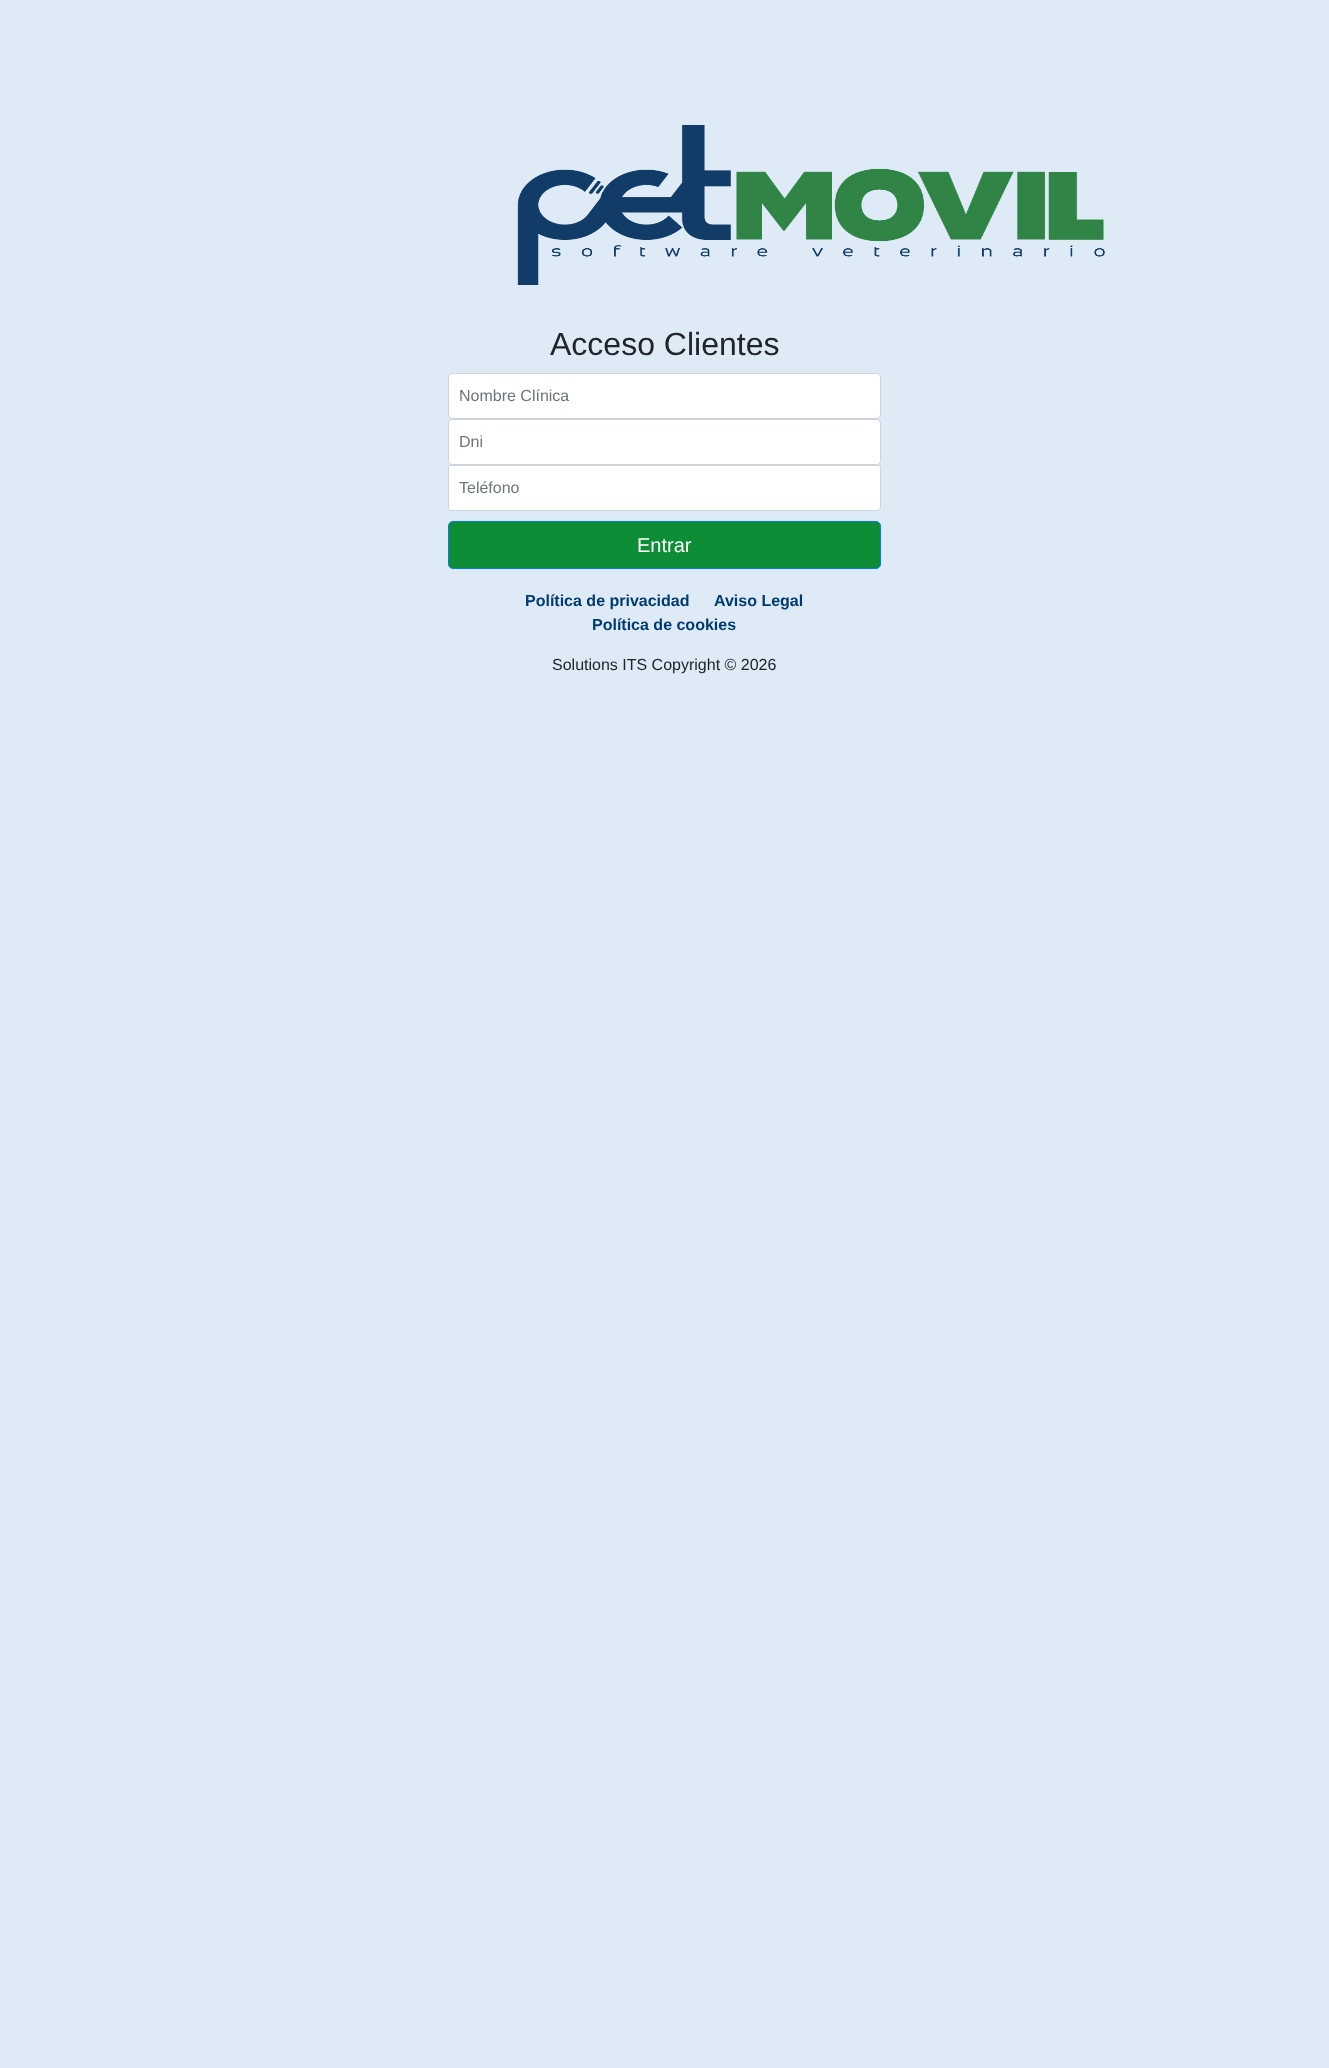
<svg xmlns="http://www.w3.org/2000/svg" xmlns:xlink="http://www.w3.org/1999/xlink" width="1329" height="2068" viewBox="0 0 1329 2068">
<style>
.cls-1{font:32px Liberation Sans;fill:#212529}
.cls-2{font:16px Liberation Sans;fill:#6c757d}
.cls-3{font:20px Liberation Sans;fill:#ffffff}
.cls-4{font:bold 16px Liberation Sans;fill:#003a70}
.cls-5{font:16px Liberation Sans;fill:#212529}
</style>
<rect width="100%" height="100%" fill="#deebf6"/>
<image xlink:href="image0.png" x="517" y="125" width="588" height="160"/>
<rect fill="#ffffff" stroke="#ced4da" x="448.5" y="373.5" width="432" height="45" rx="3.5"/>
<rect fill="#ffffff" stroke="#ced4da" x="448.5" y="419.5" width="432" height="45" rx="3.5"/>
<path fill="#ffffff" stroke="#ced4da" d="M448.5 465.5H880.5V507C880.5 509 879 510.5 877 510.5H452C450 510.5 448.5 509 448.5 507Z"/>
<rect fill="#0d8e36" stroke="#007bff" x="448.5" y="521.5" width="432" height="47" rx="4.5"/>
<text class="cls-1" x="550" y="355">Acceso Clientes</text>
<text class="cls-2" x="459" y="401">Nombre Clínica</text>
<text class="cls-2" x="459" y="447">Dni</text>
<text class="cls-2" x="459" y="493">Teléfono</text>
<text class="cls-3" x="637" y="552">Entrar</text>
<text class="cls-4" x="525" y="606">Política de privacidad</text>
<text class="cls-4" x="714" y="606">Aviso Legal</text>
<text class="cls-4" x="592" y="630">Política de cookies</text>
<text class="cls-5" x="552" y="670">Solutions ITS Copyright © 2026</text>
</svg>
